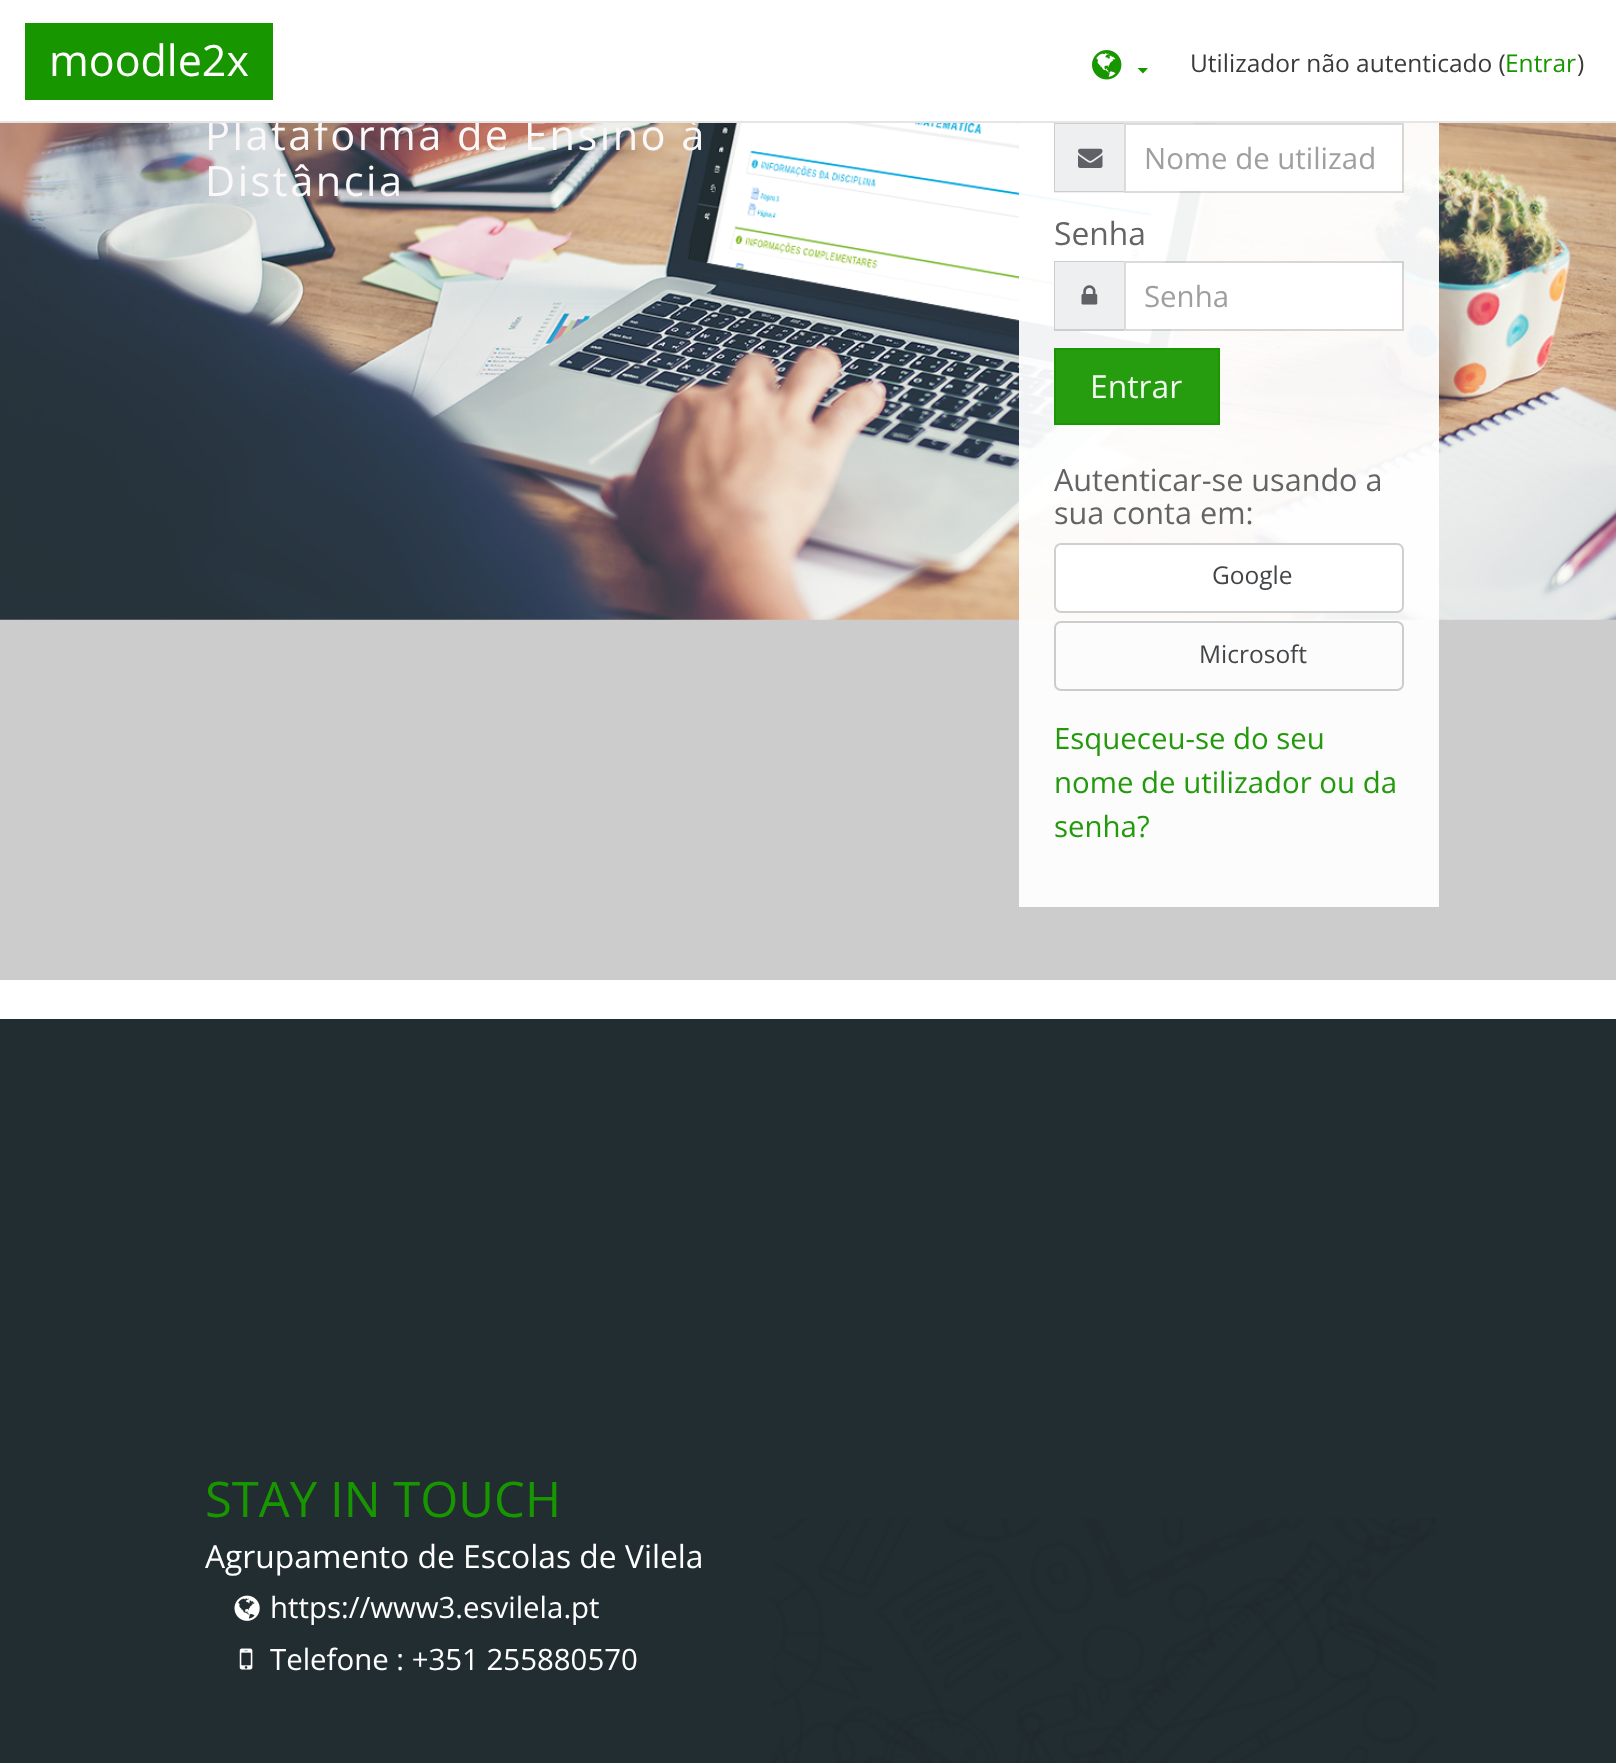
<svg xmlns="http://www.w3.org/2000/svg" xmlns:xlink="http://www.w3.org/1999/xlink" width="1616" height="1763" viewBox="0 0 1616 1763">
<style>
.cls-1{font:41.6px Open Sans;letter-spacing:2.45px;fill:#faf8f8}
.cls-2{font:24.5px Open Sans;fill:#3a3a3a}
.cls-3{font:24.5px Open Sans;fill:#189600}
.cls-4{font:43px Open Sans;fill:#ffffff}
.cls-5{font:29.4px Open Sans;fill:#9f9f9f}
.cls-6{font:31.8px Open Sans;fill:#646464}
.cls-7{font:31.8px Open Sans;fill:#f2f9f1}
.cls-8{font:30.6px Open Sans;fill:#646464}
.cls-9{font:24.5px Open Sans;fill:#434648}
.cls-10{font:29.4px Open Sans;fill:#23990c}
.cls-11{font:49px Open Sans;fill:#189600}
.cls-12{font:31.8px Open Sans;fill:#ffffff}
.cls-13{font:29.4px Open Sans;fill:#ffffff}
</style>
<rect width="100%" height="100%" fill="#222d32"/>
<rect fill="#ffffff" x="0" y="980" width="1616" height="39"/>
<rect fill="#cccccc" x="0" y="619" width="1616" height="361"/>
<image xlink:href="image1.png" x="0" y="123" width="1616" height="497"/>
<rect fill="#ffffff" fill-opacity="0.94" x="1019" y="123" width="420" height="784"/>
<rect fill="#eceeef" fill-opacity="0.94" x="1054" y="123" width="70" height="70"/>
<path fill="#0f0f0f" fill-opacity="0.15" d="M1054 122H1124V124H1055Z"/>
<path fill="#cccdce" d="M1124 192H1054L1055 191H1124Z"/>
<path fill="#000000" fill-opacity="0.14" d="M1054 192V122L1055 124V191Z"/>
<image xlink:href="image2.png" x="1078" y="148" width="25" height="20"/>
<rect fill="#ffffff" fill-opacity="0.94" x="1125" y="124" width="277" height="67"/>
<rect fill="none" stroke="#000000" stroke-opacity="0.14" stroke-width="2" x="1125" y="124" width="278" height="68"/>
<rect fill="#eceeef" fill-opacity="0.94" x="1054" y="261" width="70" height="70"/>
<path fill="#cccdce" d="M1054 261H1124V262H1055Z"/>
<path fill="#cccdce" d="M1124 331H1054L1055 329H1124Z"/>
<path fill="#000000" fill-opacity="0.14" d="M1054 331V261L1055 262V329Z"/>
<image xlink:href="image3.png" x="1081" y="285" width="17" height="20"/>
<rect fill="#ffffff" fill-opacity="0.94" x="1125" y="263" width="277" height="66"/>
<rect fill="none" stroke="#000000" stroke-opacity="0.14" stroke-width="2" x="1125" y="262" width="278" height="68"/>
<rect fill="#189600" fill-opacity="0.94" stroke="#199601" stroke-width="2" x="1055" y="349" width="164" height="75"/>
<rect fill="#ffffff" fill-opacity="0.94" x="1054" y="543" width="350" height="70" rx="7"/>
<rect fill="none" stroke="#cccccc" stroke-opacity="0.94" stroke-width="2" x="1055" y="544" width="348" height="68" rx="6"/>
<rect fill="none" stroke="#cccccc" stroke-width="2" x="1055" y="622" width="348" height="68" rx="6"/>
<image xlink:href="image4.png" x="772" y="1518" width="664" height="245"/>
<image xlink:href="image5.png" x="234" y="1595" width="26" height="26"/>
<image xlink:href="image6.png" x="239" y="1648" width="14" height="22"/>
<text class="cls-1" x="205" y="150">Plataforma de Ensino à</text>
<rect fill="#ffffff" x="0" y="0" width="1616" height="121"/>
<path fill="#189600" d="M1137.5 68H1148L1143 73.5Z"/>
<image xlink:href="image0.png" x="1092" y="50" width="30" height="30"/>
<text class="cls-2" x="1577" y="72">)</text>
<text class="cls-3" x="1505" y="72">Entrar</text>
<text class="cls-2" x="1190" y="72">Utilizador não autenticado (</text>
<rect fill="#189600" x="25" y="23" width="248" height="77"/>
<text class="cls-4" x="49" y="76">moodle2x</text>
<rect fill="#e5e5e5" x="0" y="121" width="1616" height="2"/>
<text class="cls-1" x="205" y="196">Distância</text>
<text class="cls-5" x="1144" y="169">Nome de utilizad</text>
<text class="cls-6" x="1054" y="245">Senha</text>
<text class="cls-5" x="1144" y="307">Senha</text>
<text class="cls-7" x="1090" y="398">Entrar</text>
<text class="cls-8"><tspan x="1054" y="491">Autenticar-se usando a</tspan><tspan x="1054" y="524">sua conta em:</tspan></text>
<text class="cls-9" x="1212" y="584">Google</text>
<text class="cls-9" x="1199" y="663">Microsoft</text>
<text class="cls-10"><tspan x="1054" y="749">Esqueceu-se do seu</tspan><tspan x="1054" y="793">nome de utilizador ou da</tspan><tspan x="1054" y="837">senha?</tspan></text>
<text class="cls-11" x="205" y="1517">STAY IN TOUCH</text>
<text class="cls-12" x="205" y="1568">Agrupamento de Escolas de Vilela</text>
<text class="cls-13"><tspan x="270" y="1618">https://www3.esvilela.pt</tspan><tspan x="270" y="1670">Telefone : +351 255880570</tspan></text>
</svg>
